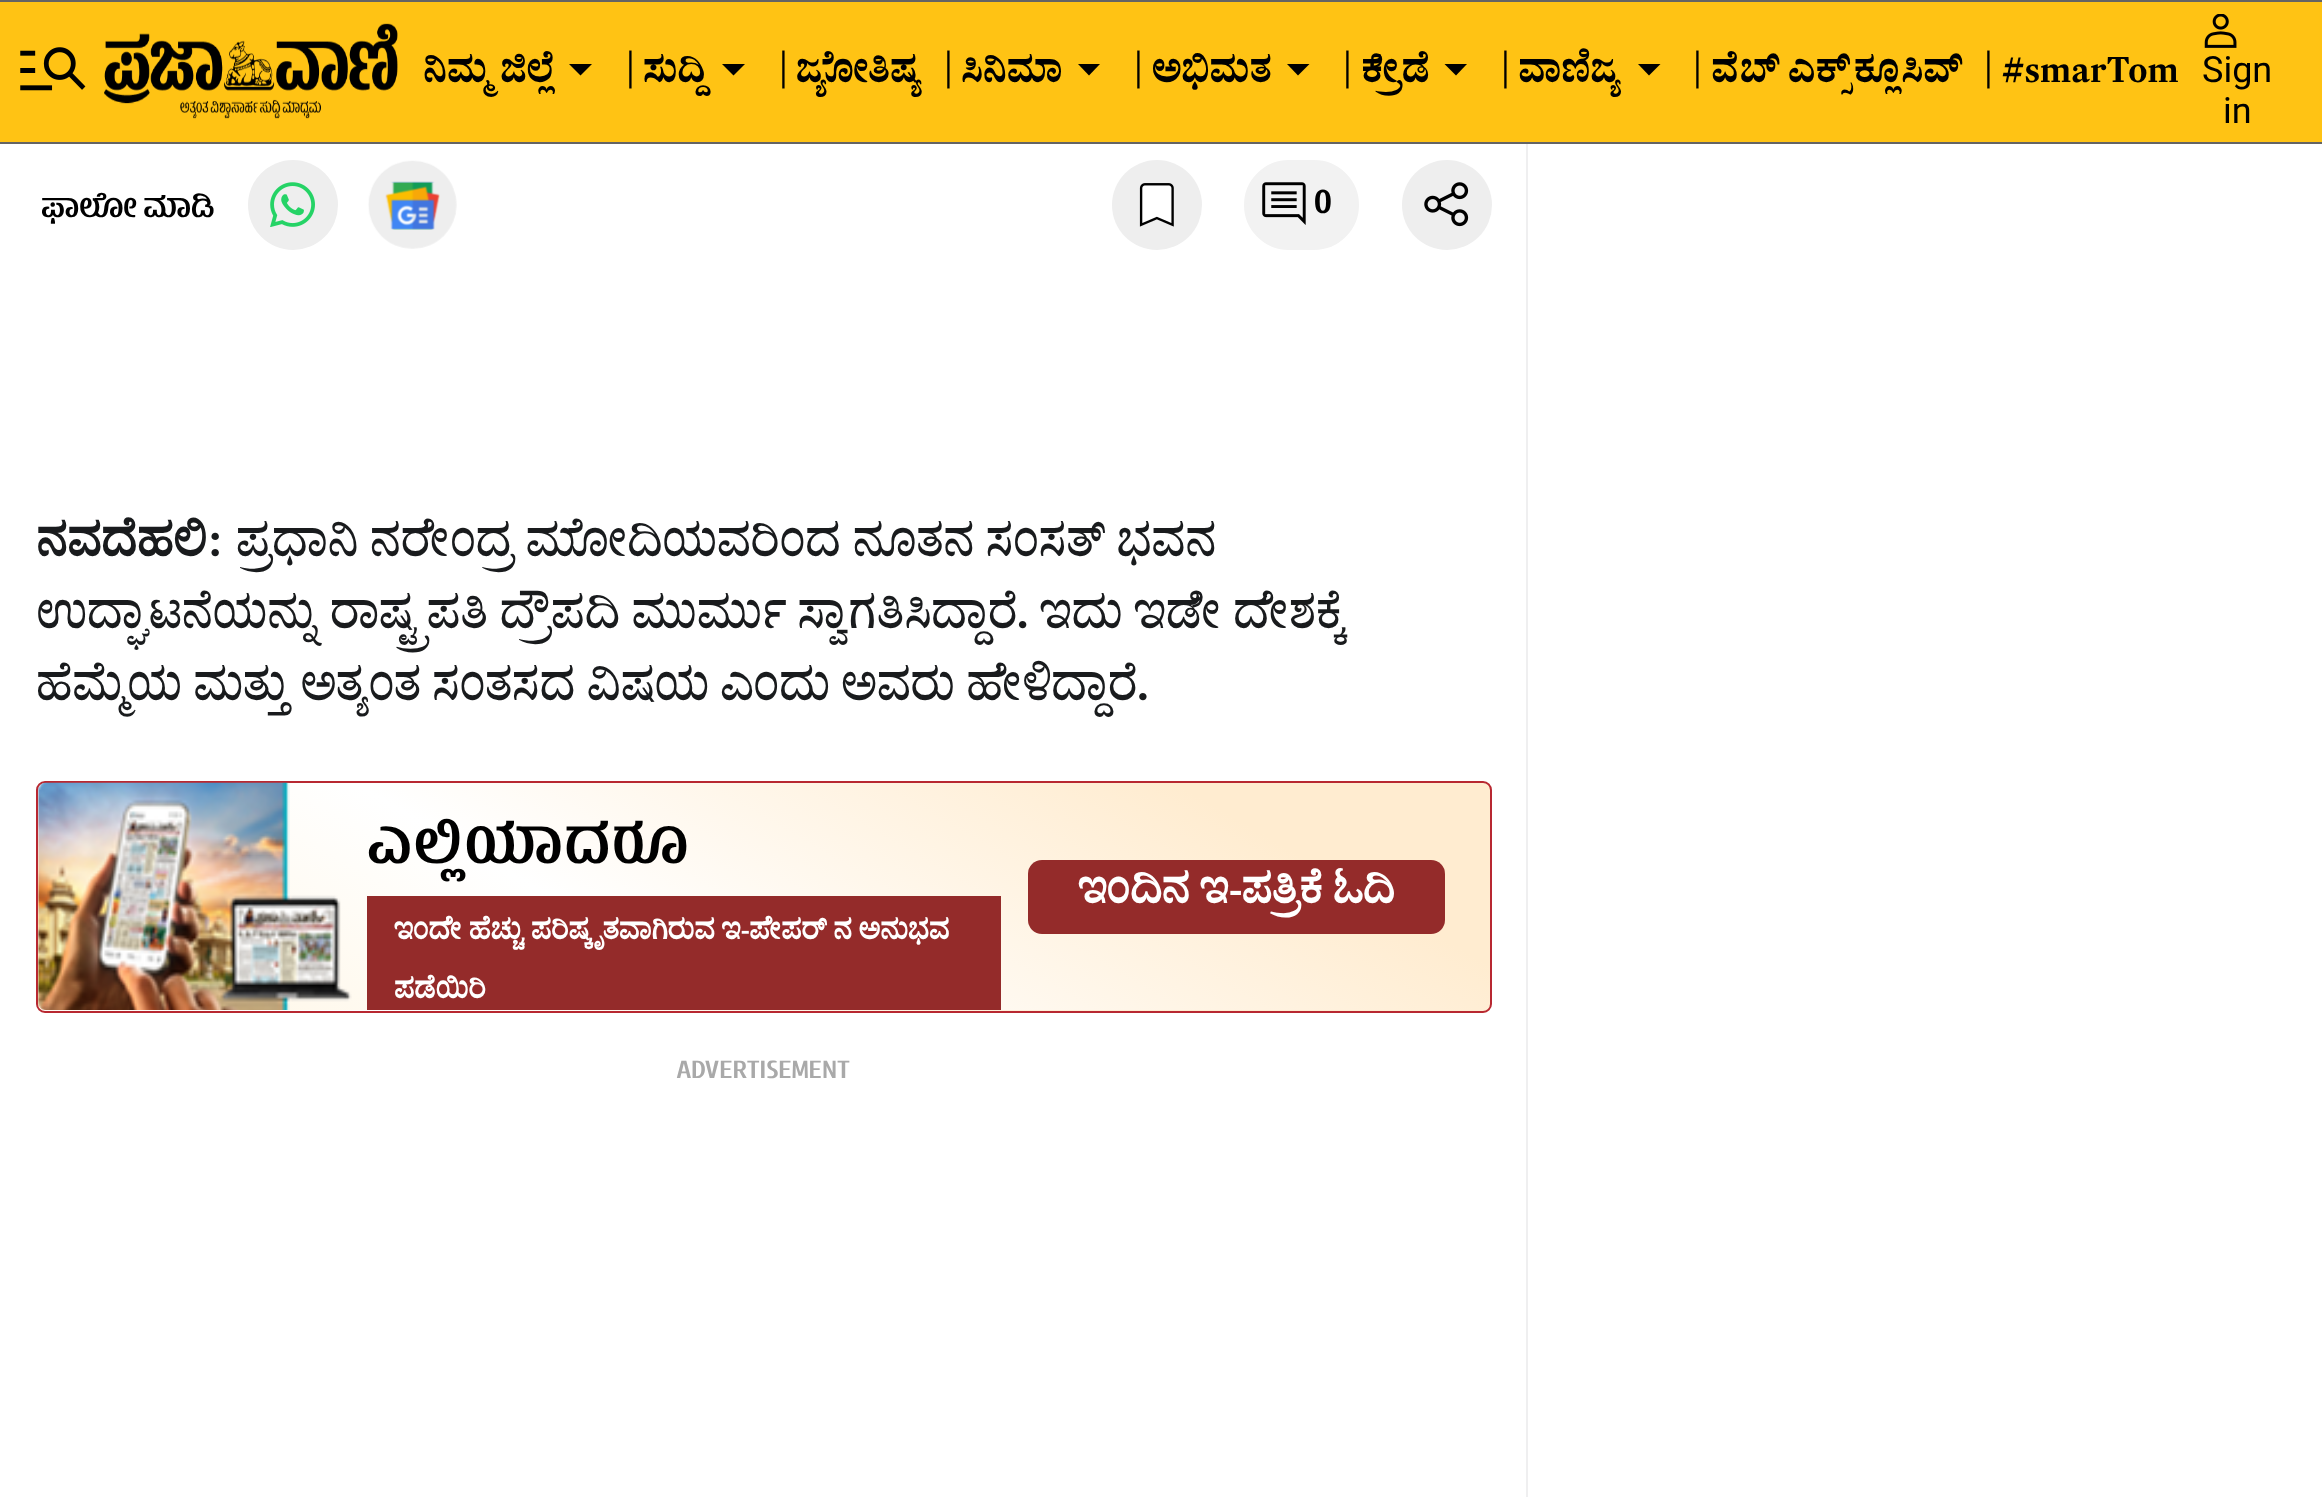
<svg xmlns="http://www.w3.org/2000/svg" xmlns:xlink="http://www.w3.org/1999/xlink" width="2322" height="1497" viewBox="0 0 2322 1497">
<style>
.cls-1{font:600 36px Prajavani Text;fill:#000000}
.cls-2{font:36px Roboto;fill:#000000}
.cls-3{font:600 31.5px 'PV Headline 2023';fill:#000000}
.cls-4{font:600 36px 'PV Headline 2023';fill:#000000}
.cls-5{font:bold 45px Prajavani Text;fill:#191b1d}
.cls-6{font:45px Prajavani Text;fill:#191b1d}
.cls-7{font:600 60.75px 'PV Headline 2023';letter-spacing:2.5px;fill:#000000}
.cls-8{font:bold 27px Prajavani Text;fill:#ffffff}
.cls-9{font:bold 40.5px Prajavani Text;fill:#ffffff}
.cls-10{font:600 27px 'PV Headline 2023';fill:#a9a9a9}
</style>
<defs>
<clipPath id="clip1"><rect x="36" y="781" width="1456" height="232" rx="9"/></clipPath>
<linearGradient id="g1" gradientUnits="userSpaceOnUse" x1="388" y1="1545" x2="996" y2="497"><stop offset="0" stop-color="#ffedca"/><stop offset="0.53" stop-color="#ffffff"/><stop offset="0.87" stop-color="#ffecd0"/></linearGradient>
<linearGradient id="g2" gradientUnits="userSpaceOnUse" x1="388" y1="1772" x2="996" y2="724"><stop offset="0" stop-color="#ffedca"/><stop offset="0.53" stop-color="#ffffff"/><stop offset="0.87" stop-color="#ffecd0"/></linearGradient>
</defs>
<rect width="100%" height="100%" fill="#ffffff"/>
<rect fill="#ffc314" x="0" y="2" width="2322" height="140"/>
<rect fill="#646464" x="0" y="0" width="2322" height="2"/>
<rect fill="#646464" x="0" y="142" width="2322" height="2"/>
<image xlink:href="image0.png" x="20" y="47" width="66" height="44"/>
<image xlink:href="image1.png" x="104" y="23" width="294" height="96"/>
<path fill="#000000" d="M580.5 75.5L569 64H592Z"/>
<path fill="#000000" d="M733.5 75.5L722 64H745Z"/>
<path fill="#000000" d="M1089 75.5L1078 64H1100Z"/>
<path fill="#000000" d="M1298 75.5L1287 64H1309.5Z"/>
<path fill="#000000" d="M1456 75.5L1444.5 64H1467Z"/>
<path fill="#000000" d="M1649 75.5L1638 64H1660.5Z"/>
<image xlink:href="image2.png" x="2204" y="14" width="33" height="34"/>
<circle fill="#eeeeee" cx="293" cy="205" r="45"/>
<image xlink:href="image3.png" x="270" y="182" width="45" height="45"/>
<image xlink:href="image4.png" x="368" y="160" width="89" height="89"/>
<circle fill="#eeeeee" cx="1157" cy="205" r="45"/>
<image xlink:href="image5.png" x="1139" y="183" width="35" height="44"/>
<rect fill="#f2f2f2" stroke="#f2f2f2" stroke-width="2" x="1245" y="161" width="113" height="88" rx="44"/>
<image xlink:href="image6.png" x="1262" y="182" width="44" height="43"/>
<circle fill="#eeeeee" cx="1447" cy="205" r="45"/>
<image xlink:href="image7.png" x="1424" y="182" width="45" height="45"/>
<g clip-path="url(#clip1)">
<rect fill="url(#g1)" x="38" y="783" width="1452" height="227"/>
<rect fill="url(#g2)" x="38" y="1010" width="1452" height="3"/>
</g>
<rect fill="none" stroke="#b82831" stroke-width="2" x="37" y="782" width="1454" height="230" rx="8"/>
<image xlink:href="image8.png" x="38" y="782" width="314" height="228"/>
<rect fill="#942b2a" x="367" y="896" width="634" height="114"/>
<rect fill="#942b2a" x="1028" y="860" width="417" height="74" rx="14"/>
<rect fill="#efeff0" x="1526" y="144" width="2" height="1353"/>
<text class="cls-1" x="423" y="82">ನಿಮ್ಮ ಜಿಲ್ಲೆ</text>
<text class="cls-1" x="624" y="79">|</text>
<text class="cls-1" x="643" y="82">ಸುದ್ದಿ</text>
<text class="cls-1" x="777" y="79">|</text>
<text class="cls-1" x="796" y="82">ಜ್ಯೋತಿಷ್ಯ</text>
<text class="cls-1" x="942" y="79">|</text>
<text class="cls-1" x="961" y="82">ಸಿನಿಮಾ</text>
<text class="cls-1" x="1132" y="79">|</text>
<text class="cls-1" x="1152" y="82">ಅಭಿಮತ</text>
<text class="cls-1" x="1341" y="79">|</text>
<text class="cls-1" x="1361" y="82">ಕ್ರೀಡೆ</text>
<text class="cls-1" x="1499" y="79">|</text>
<text class="cls-1" x="1518" y="82">ವಾಣಿಜ್ಯ</text>
<text class="cls-1" x="1691" y="79">|</text>
<text class="cls-1" x="1711" y="82">ವೆಬ್ ಎಕ್ಸ್‌ಕ್ಲೂಸಿವ್</text>
<text class="cls-1" x="1982" y="79">|</text>
<text class="cls-1" x="2002" y="82">#smarTom</text>
<text class="cls-2" x="2202" y="82">Sign</text>
<text class="cls-2" x="2223" y="123">in</text>
<text class="cls-3" x="41" y="217">ಫಾಲೋ ಮಾಡಿ</text>
<text class="cls-4" x="1314" y="213">0</text>
<text class="cls-5" x="36" y="556">ನವದೆಹಲಿ</text>
<text class="cls-6" x="206" y="556">: ಪ್ರಧಾನಿ ನರೇಂದ್ರ ಮೋದಿಯವರಿಂದ ನೂತನ ಸಂಸತ್ ಭವನ</text>
<text class="cls-6"><tspan x="36" y="628">ಉದ್ಘಾಟನೆಯನ್ನು ರಾಷ್ಟ್ರಪತಿ ದ್ರೌಪದಿ ಮುರ್ಮು ಸ್ವಾಗತಿಸಿದ್ದಾರೆ. ಇದು ಇಡೀ ದೇಶಕ್ಕೆ</tspan><tspan x="36" y="700">ಹೆಮ್ಮೆಯ ಮತ್ತು ಅತ್ಯಂತ ಸಂತಸದ ವಿಷಯ ಎಂದು ಅವರು ಹೇಳಿದ್ದಾರೆ.</tspan></text>
<text class="cls-7" x="367" y="863">ಎಲ್ಲಿಯಾದರೂ</text>
<text class="cls-8" x="394" y="939">ಇಂದೇ ಹೆಚ್ಚು ಪರಿಷ್ಕೃತವಾಗಿರುವ ಇ-ಪೇಪರ್ ನ ಅನುಭವ</text>
<text class="cls-8" x="394" y="998">ಪಡೆಯಿರಿ</text>
<text class="cls-9" x="1078" y="903">ಇಂದಿನ ಇ-ಪತ್ರಿಕೆ ಓದಿ</text>
<text class="cls-10" x="676" y="1078">ADVERTISEMENT</text>
</svg>
